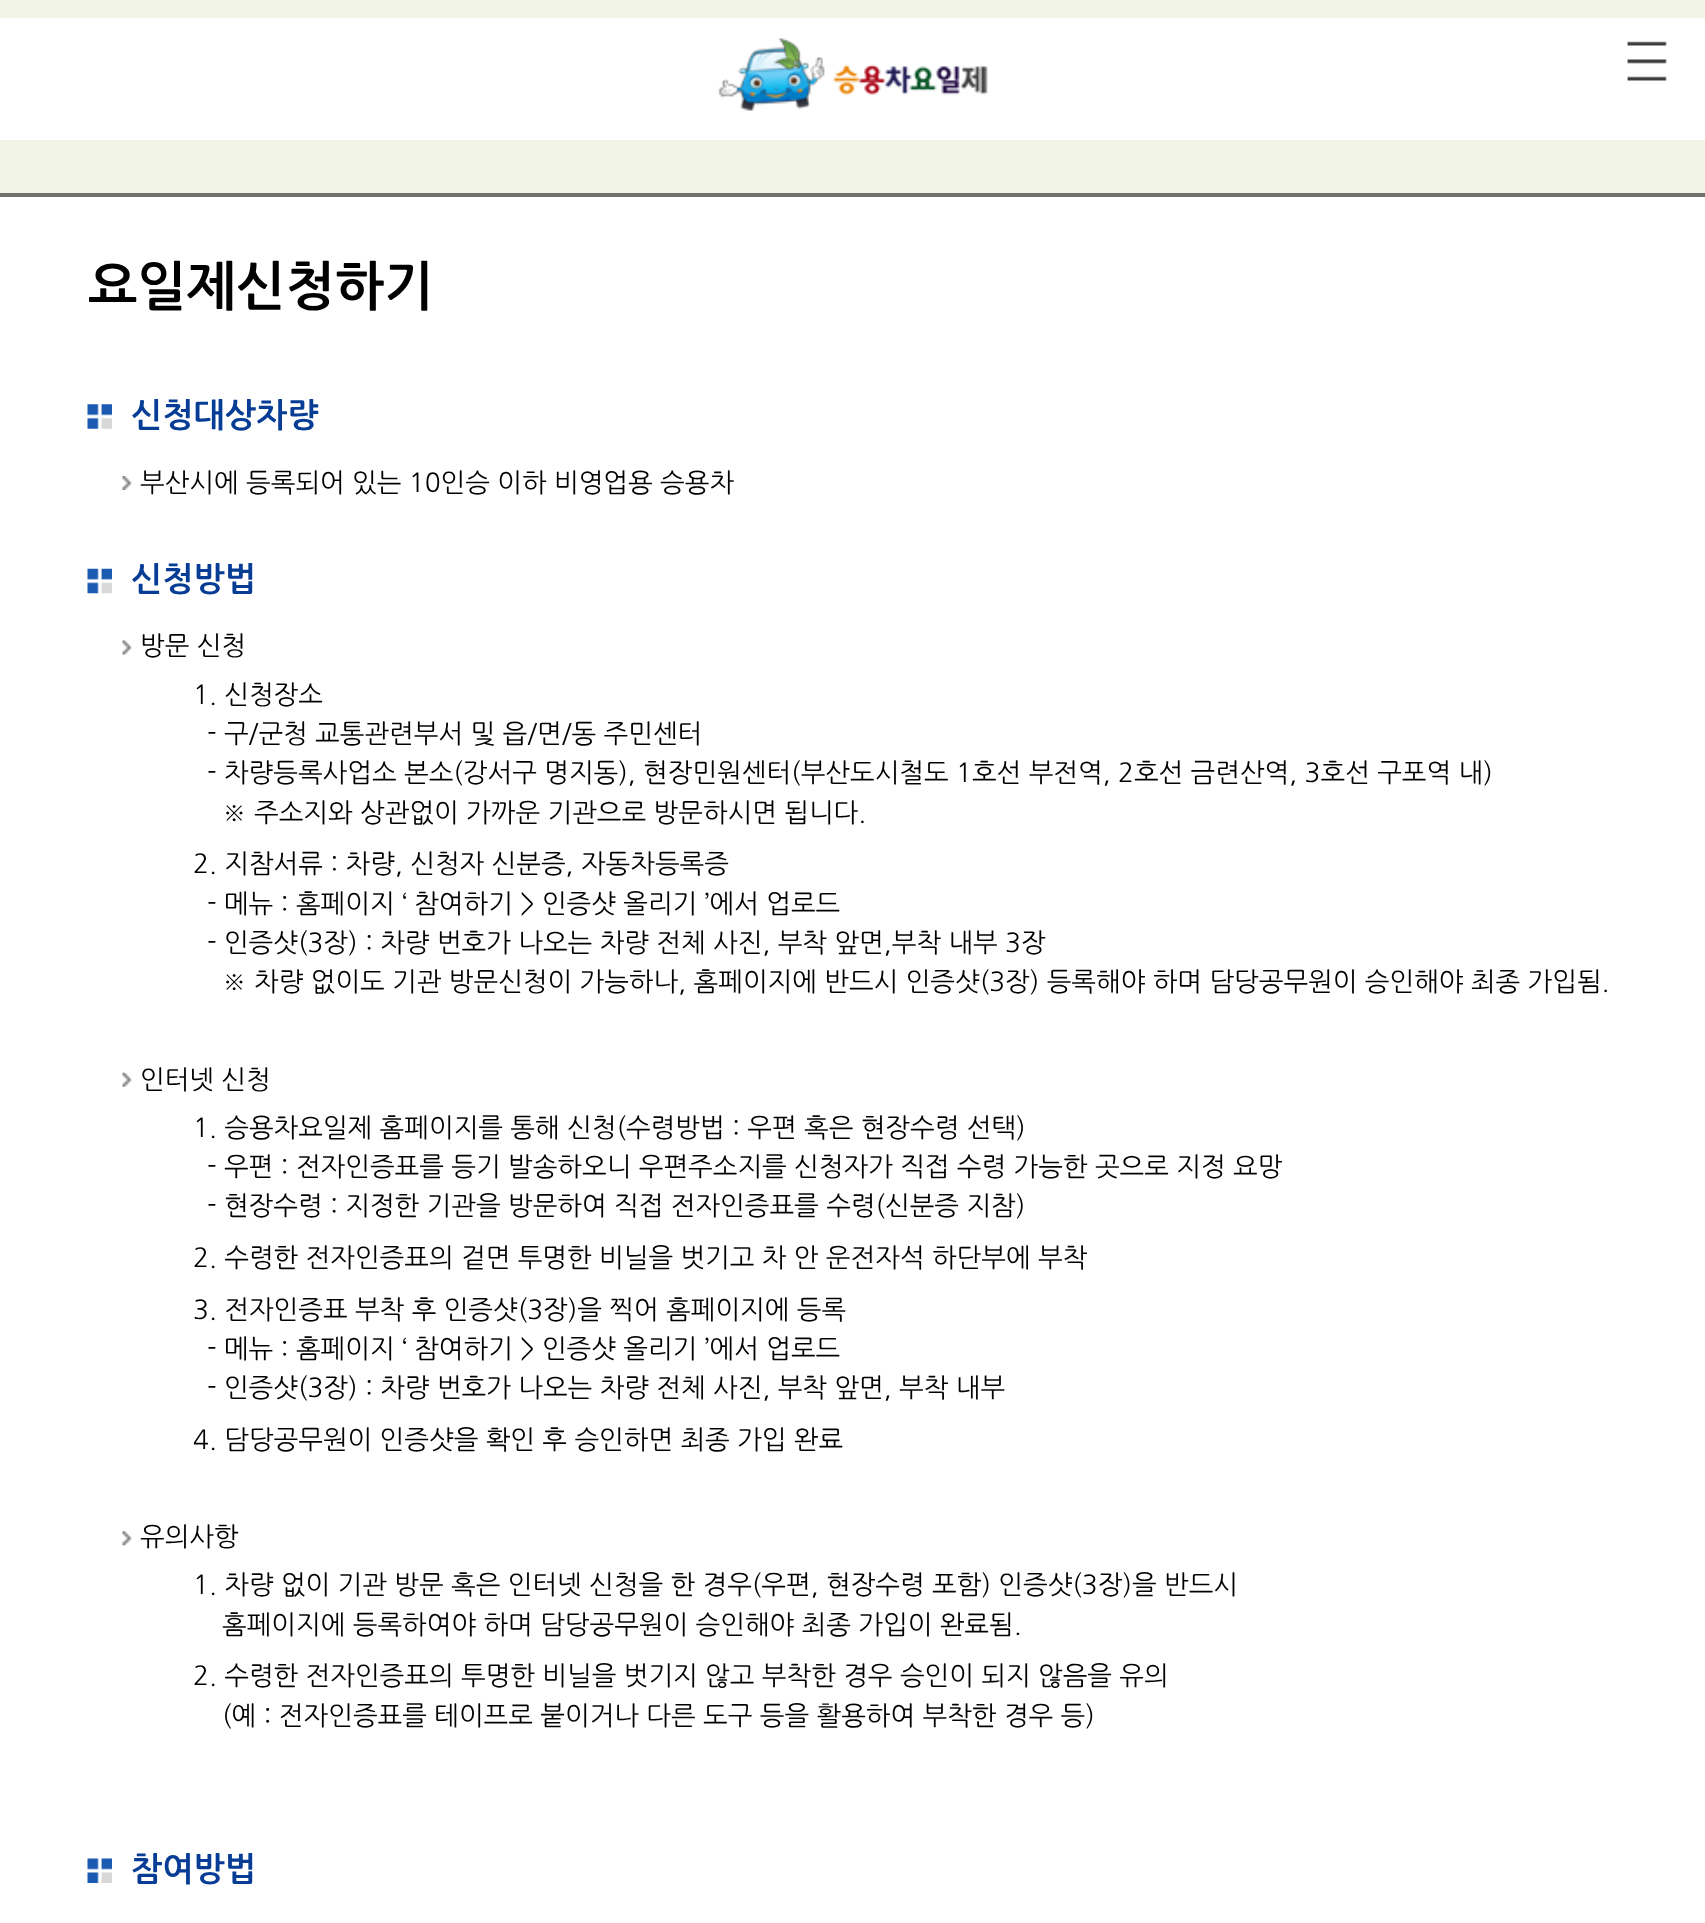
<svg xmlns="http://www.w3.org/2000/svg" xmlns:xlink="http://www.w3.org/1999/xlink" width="1705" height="1923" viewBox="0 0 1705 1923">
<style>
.cls-1{font:bold 52.5px NanumGothic;fill:#000000}
.cls-2{font:bold 33.25px NanumGothic;fill:#073d95}
.cls-3{font:26.25px NanumGothic;fill:#000000}
</style>
<rect width="100%" height="100%" fill="#f2f4e6"/>
<rect fill="#ffffff" x="0" y="18" width="1705" height="122"/>
<image xlink:href="image0.png" x="718" y="38" width="270" height="73"/>
<image xlink:href="image1.png" x="1627" y="41" width="40" height="40"/>
<rect fill="#ffffff" x="0" y="197" width="1705" height="1726"/>
<rect fill="#717171" x="0" y="193" width="1705" height="4"/>
<image xlink:href="image2.png" x="87" y="404" width="25" height="25"/>
<image xlink:href="image3.png" x="122" y="476" width="10" height="14"/>
<image xlink:href="image4.png" x="87" y="568" width="25" height="26"/>
<image xlink:href="image5.png" x="122" y="640" width="10" height="15"/>
<image xlink:href="image6.png" x="122" y="1072" width="10" height="15"/>
<image xlink:href="image7.png" x="122" y="1531" width="10" height="15"/>
<image xlink:href="image8.png" x="87" y="1858" width="25" height="25"/>
<text class="cls-1" x="88" y="305">요일제신청하기</text>
<text class="cls-2" x="131" y="427">신청대상차량</text>
<text class="cls-3" x="140" y="492">부산시에 등록되어 있는 10인승 이하 비영업용 승용차</text>
<text class="cls-2" x="131" y="591">신청방법</text>
<text class="cls-3" x="140" y="655">방문 신청</text>
<text class="cls-3" x="193" y="704">1. 신청장소</text>
<text class="cls-3"><tspan x="207" y="743">- 구/군청 교통관련부서 및 읍/면/동 주민센터</tspan><tspan x="207" y="782">- 차량등록사업소 본소(강서구 명지동), 현장민원센터(부산도시철도 1호선 부전역, 2호선 금련산역, 3호선 구포역 내)</tspan></text>
<text class="cls-3" x="222" y="822">※ 주소지와 상관없이 가까운 기관으로 방문하시면 됩니다.</text>
<text class="cls-3" x="193" y="873">2. 지참서류 : 차량, 신청자 신분증, 자동차등록증</text>
<text class="cls-3"><tspan x="207" y="913">- 메뉴 : 홈페이지 ‘ 참여하기 &gt; 인증샷 올리기 ’에서 업로드</tspan><tspan x="207" y="952">- 인증샷(3장) : 차량 번호가 나오는 차량 전체 사진, 부착 앞면,부착 내부 3장</tspan></text>
<text class="cls-3" x="222" y="991">※ 차량 없이도 기관 방문신청이 가능하나, 홈페이지에 반드시 인증샷(3장) 등록해야 하며 담당공무원이 승인해야 최종 가입됨.</text>
<text class="cls-3" x="140" y="1089">인터넷 신청</text>
<text class="cls-3" x="193" y="1137">1. 승용차요일제 홈페이지를 통해 신청(수령방법 : 우편 혹은 현장수령 선택)</text>
<text class="cls-3"><tspan x="207" y="1176">- 우편 : 전자인증표를 등기 발송하오니 우편주소지를 신청자가 직접 수령 가능한 곳으로 지정 요망</tspan><tspan x="207" y="1215">- 현장수령 : 지정한 기관을 방문하여 직접 전자인증표를 수령(신분증 지참)</tspan></text>
<text class="cls-3"><tspan x="193" y="1267">2. 수령한 전자인증표의 겉면 투명한 비닐을 벗기고 차 안 운전자석 하단부에 부착</tspan><tspan x="193" y="1319">3. 전자인증표 부착 후 인증샷(3장)을 찍어 홈페이지에 등록</tspan></text>
<text class="cls-3"><tspan x="207" y="1358">- 메뉴 : 홈페이지 ‘ 참여하기 &gt; 인증샷 올리기 ’에서 업로드</tspan><tspan x="207" y="1397">- 인증샷(3장) : 차량 번호가 나오는 차량 전체 사진, 부착 앞면, 부착 내부</tspan></text>
<text class="cls-3" x="193" y="1449">4. 담당공무원이 인증샷을 확인 후 승인하면 최종 가입 완료</text>
<text class="cls-3" x="140" y="1546">유의사항</text>
<text class="cls-3" x="193" y="1594">1. 차량 없이 기관 방문 혹은 인터넷 신청을 한 경우(우편, 현장수령 포함) 인증샷(3장)을 반드시</text>
<text class="cls-3" x="222" y="1634">홈페이지에 등록하여야 하며 담당공무원이 승인해야 최종 가입이 완료됨.</text>
<text class="cls-3" x="193" y="1685">2. 수령한 전자인증표의 투명한 비닐을 벗기지 않고 부착한 경우 승인이 되지 않음을 유의</text>
<text class="cls-3" x="222" y="1725">(예 : 전자인증표를 테이프로 붙이거나 다른 도구 등을 활용하여 부착한 경우 등)</text>
<text class="cls-2" x="131" y="1881">참여방법</text>
</svg>
